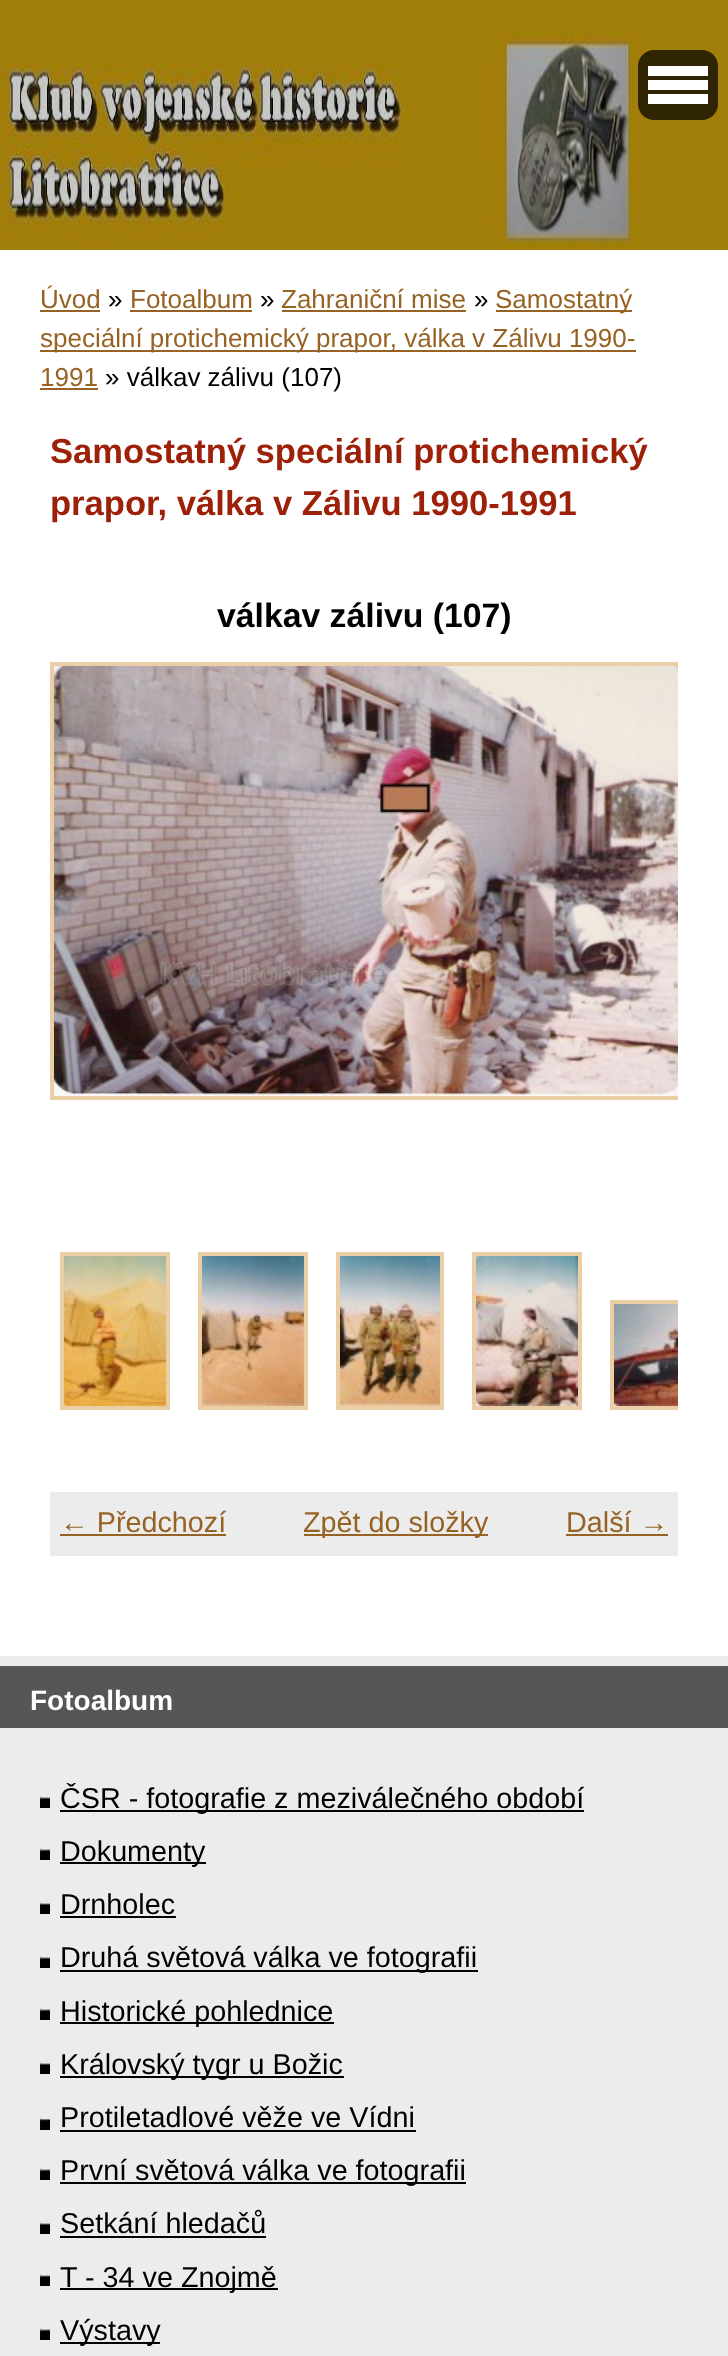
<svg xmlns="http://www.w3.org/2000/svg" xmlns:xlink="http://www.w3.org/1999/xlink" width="728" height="2356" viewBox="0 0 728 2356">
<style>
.cls-1{font:26px Liberation Sans;fill:#976325}
.cls-2{font:26px Liberation Sans;fill:#000000}
.cls-3{font:bold 34.6px Liberation Sans;fill:#9d2109}
.cls-4{font:bold 33.75px Liberation Sans;fill:#000000}
.cls-5{font:28.75px Liberation Sans;fill:#976325}
.cls-6{font:bold 28px Liberation Sans;fill:#ffffff}
.cls-7{font:28.75px Liberation Sans;fill:#000000}
</style>
<defs>
<clipPath id="clip1"><rect x="50" y="560" width="628" height="662"/></clipPath>
<clipPath id="clip2"><rect x="50" y="1252" width="628" height="200"/></clipPath>
</defs>
<rect width="100%" height="100%" fill="#ffffff"/>
<image xlink:href="image0.png" x="0" y="0" width="728" height="250"/>
<rect fill="#000000" fill-opacity="0.7" x="638" y="50" width="80" height="70" rx="16"/>
<rect fill="#ffffff" x="648" y="66" width="60" height="10"/>
<rect fill="#ffffff" x="648" y="80" width="60" height="10"/>
<rect fill="#ffffff" x="648" y="94" width="60" height="10"/>
<rect fill="#976325" x="40" y="310" width="60" height="2"/>
<rect fill="#976325" x="130" y="310" width="122" height="2"/>
<rect fill="#976325" x="282" y="310" width="184" height="2"/>
<rect fill="#976325" x="496" y="310" width="136" height="2"/>
<rect fill="#976325" x="40" y="350" width="596" height="2"/>
<rect fill="#976325" x="40" y="388" width="58" height="2"/>
<g clip-path="url(#clip1)">
<rect fill="none" stroke="#ebcda6" stroke-width="4" x="52" y="664" width="632" height="434"/>
</g>
<image xlink:href="image1.png" x="54" y="666" width="624" height="430"/>
<rect fill="none" stroke="#ebcda6" stroke-width="4" x="62" y="1254" width="106" height="154"/>
<rect fill="none" stroke="#ebcda6" stroke-width="4" x="200" y="1254" width="106" height="154"/>
<rect fill="none" stroke="#ebcda6" stroke-width="4" x="338" y="1254" width="104" height="154"/>
<rect fill="none" stroke="#ebcda6" stroke-width="4" x="474" y="1254" width="106" height="154"/>
<image xlink:href="image2.png" x="64" y="1256" width="102" height="150"/>
<image xlink:href="image3.png" x="202" y="1256" width="102" height="150"/>
<image xlink:href="image4.png" x="340" y="1256" width="100" height="150"/>
<image xlink:href="image5.png" x="476" y="1256" width="102" height="150"/>
<g clip-path="url(#clip2)">
<rect fill="none" stroke="#ebcda6" stroke-width="4" x="612" y="1302" width="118" height="106"/>
</g>
<image xlink:href="image6.png" x="614" y="1304" width="64" height="102"/>
<rect fill="#ececec" x="50" y="1492" width="628" height="64"/>
<rect fill="#976325" x="60" y="1534" width="166" height="2"/>
<rect fill="#976325" x="304" y="1534" width="184" height="2"/>
<rect fill="#976325" x="566" y="1534" width="102" height="2"/>
<rect fill="#ececec" x="0" y="1656" width="728" height="700"/>
<rect fill="#565656" x="0" y="1666" width="728" height="62"/>
<image xlink:href="image7.png" x="40" y="1770" width="10" height="38"/>
<rect fill="#000000" x="60" y="1810" width="524" height="2"/>
<image xlink:href="image7.png" x="40" y="1822" width="10" height="38"/>
<rect fill="#000000" x="60" y="1862" width="146" height="2"/>
<image xlink:href="image7.png" x="40" y="1876" width="10" height="38"/>
<rect fill="#000000" x="60" y="1916" width="116" height="2"/>
<image xlink:href="image7.png" x="40" y="1930" width="10" height="38"/>
<rect fill="#000000" x="60" y="1970" width="418" height="2"/>
<image xlink:href="image7.png" x="40" y="1982" width="10" height="38"/>
<rect fill="#000000" x="60" y="2022" width="274" height="2"/>
<image xlink:href="image7.png" x="40" y="2036" width="10" height="38"/>
<rect fill="#000000" x="60" y="2076" width="284" height="2"/>
<image xlink:href="image8.png" x="40" y="2092" width="10" height="38"/>
<rect fill="#000000" x="60" y="2130" width="356" height="2"/>
<image xlink:href="image7.png" x="40" y="2142" width="10" height="38"/>
<rect fill="#000000" x="60" y="2182" width="406" height="2"/>
<image xlink:href="image7.png" x="40" y="2196" width="10" height="38"/>
<rect fill="#000000" x="60" y="2236" width="206" height="2"/>
<image xlink:href="image7.png" x="40" y="2248" width="10" height="38"/>
<rect fill="#000000" x="60" y="2288" width="218" height="2"/>
<image xlink:href="image7.png" x="40" y="2302" width="10" height="38"/>
<rect fill="#000000" x="60" y="2342" width="100" height="2"/>
<text class="cls-1" x="40" y="308">Úvod</text>
<text class="cls-2" x="108" y="308">»</text>
<text class="cls-1" x="130" y="308">Fotoalbum</text>
<text class="cls-2" x="260" y="308">»</text>
<text class="cls-1" x="281" y="308">Zahraniční mise</text>
<text class="cls-2" x="474" y="308">»</text>
<text class="cls-1" x="495" y="308">Samostatný</text>
<text class="cls-1"><tspan x="40" y="347">speciální protichemický prapor, válka v Zálivu 1990-</tspan><tspan x="40" y="386">1991</tspan></text>
<text class="cls-2" x="105" y="386">» válkav zálivu (107)</text>
<text class="cls-3"><tspan x="50" y="463">Samostatný speciální protichemický</tspan><tspan x="50" y="515">prapor, válka v Zálivu 1990-1991</tspan></text>
<text class="cls-4" x="217" y="627">válkav zálivu (107)</text>
<text class="cls-5" x="60" y="1532">← Předchozí</text>
<text class="cls-5" x="303" y="1532">Zpět do složky</text>
<text class="cls-5" x="566" y="1532">Další →</text>
<text class="cls-6" x="30" y="1710">Fotoalbum</text>
<text class="cls-7"><tspan x="60" y="1808">ČSR - fotografie z meziválečného období</tspan><tspan x="60" y="1861">Dokumenty</tspan><tspan x="60" y="1914">Drnholec</tspan><tspan x="60" y="1967">Druhá světová válka ve fotografii</tspan><tspan x="60" y="2021">Historické pohlednice</tspan><tspan x="60" y="2074">Královský tygr u Božic</tspan><tspan x="60" y="2127">Protiletadlové věže ve Vídni</tspan><tspan x="60" y="2180">První světová válka ve fotografii</tspan><tspan x="60" y="2233">Setkání hledačů</tspan><tspan x="60" y="2287">T - 34 ve Znojmě</tspan><tspan x="60" y="2340">Výstavy</tspan></text>
</svg>
